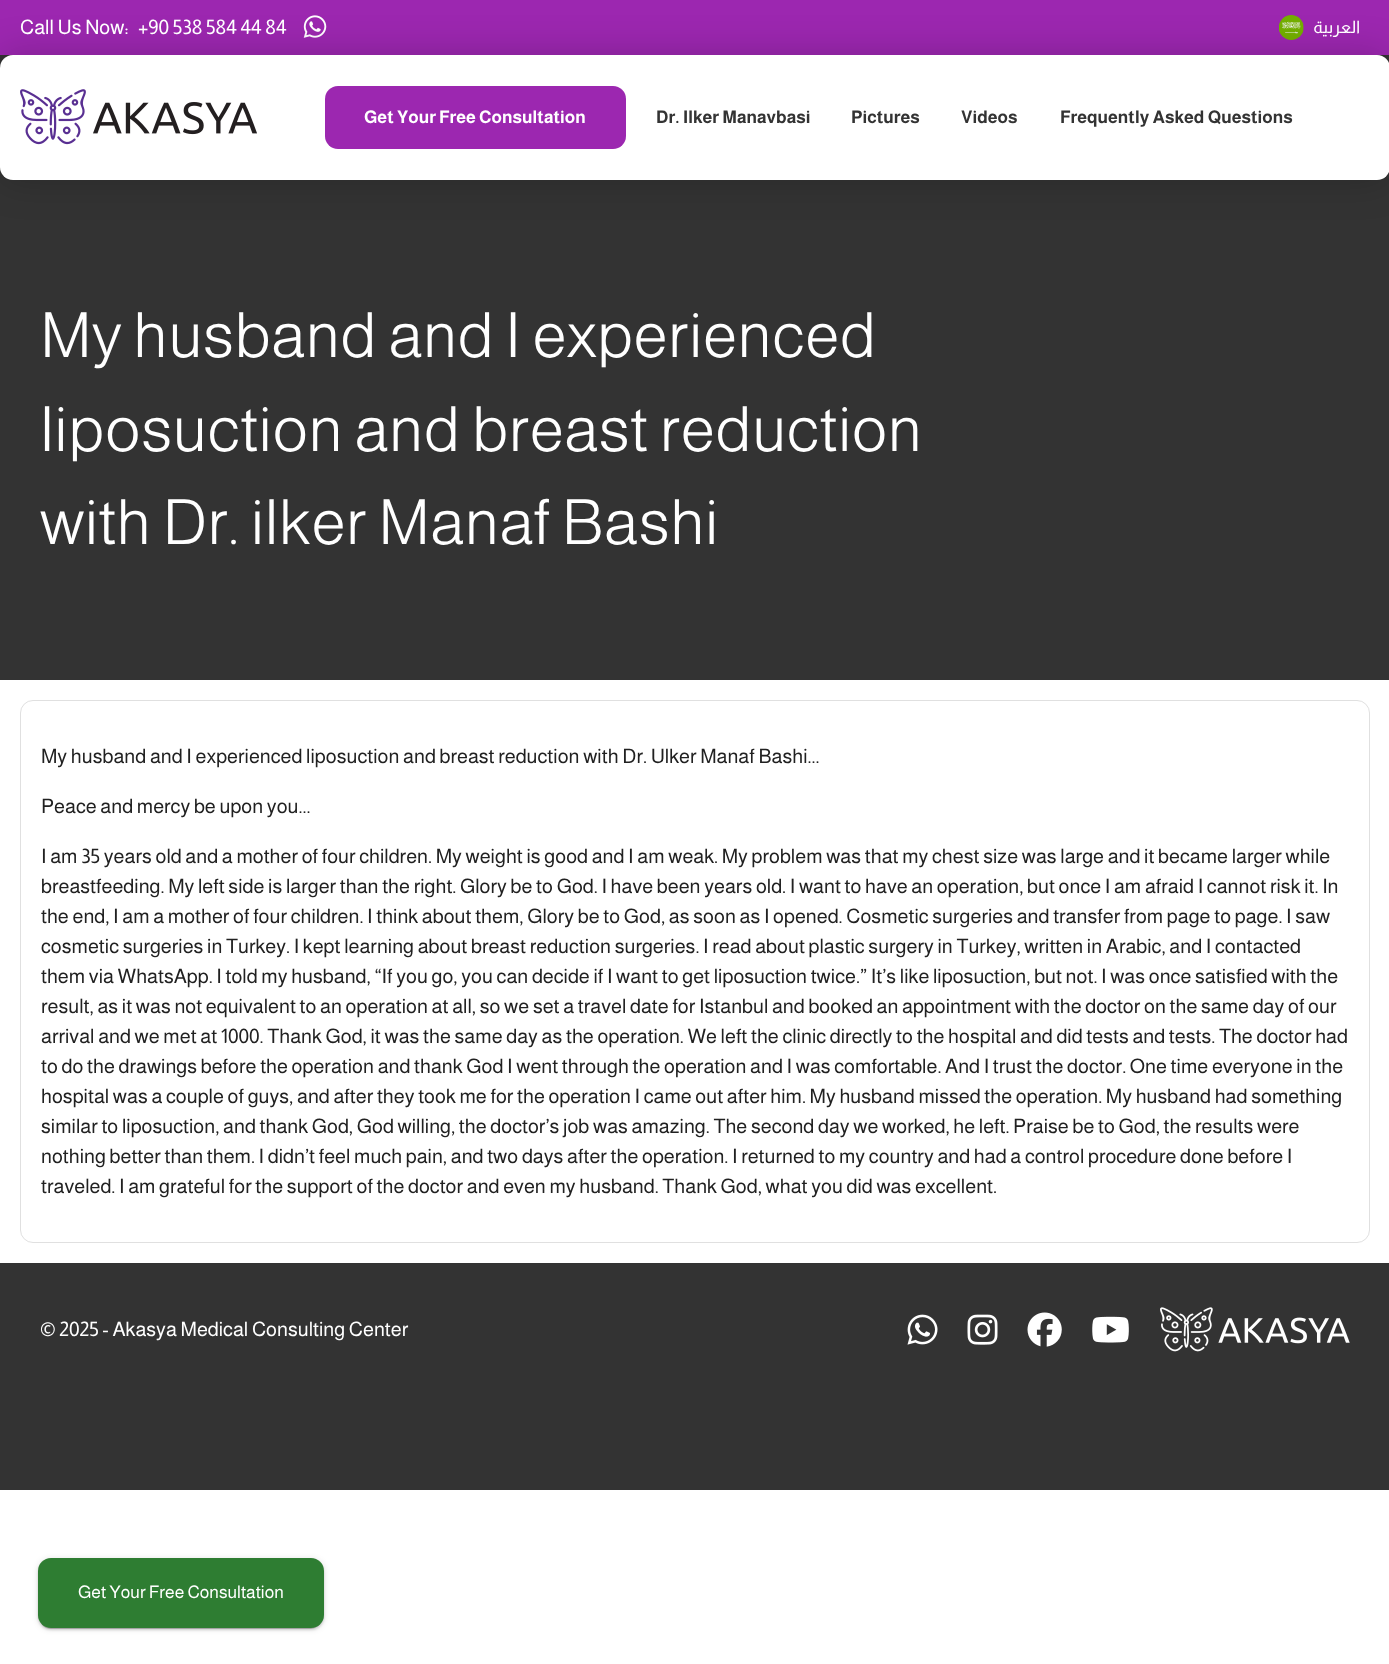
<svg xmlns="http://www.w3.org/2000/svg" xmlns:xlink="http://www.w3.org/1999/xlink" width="1389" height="1664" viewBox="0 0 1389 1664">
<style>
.cls-1{font:20px Almarai;fill:#ffffff}
.cls-2{font:17px Almarai;direction:rtl;fill:#ffffff}
.cls-3{font:bold 17.5px Almarai;fill:#ffffff}
.cls-4{font:bold 17.5px Almarai;fill:#333333}
.cls-5{font:17.5px Almarai;fill:#ffffff}
.cls-6{font:300 62.5px Almarai;fill:#ffffff}
.cls-7{font:20px Almarai;fill:#212121}
</style>
<rect width="100%" height="100%" fill="#ffffff"/>
<rect fill="#9c27b0" x="0" y="0" width="1389" height="55"/>
<image xlink:href="image0.png" x="303" y="15" width="24" height="23"/>
<image xlink:href="image1.png" x="1279" y="15" width="25" height="25"/>
<rect fill="#333333" x="0" y="55" width="1389" height="625"/>
<rect fill="#000000" fill-opacity="0.2" filter="blur(19px)" x="0" y="55" width="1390" height="125" rx="13"/>
<rect fill="#ffffff" x="0" y="55" width="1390" height="125" rx="13"/>
<image xlink:href="image2.png" x="20" y="89" width="237" height="56"/>
<rect fill="#9c27b0" x="325" y="86" width="301" height="63" rx="13"/>
<rect fill="#000000" fill-opacity="0.12" filter="blur(3px)" x="38" y="1559" width="286" height="70" rx="13"/>
<rect fill="#000000" fill-opacity="0.14" filter="blur(1px)" x="38" y="1560" width="286" height="70" rx="13"/>
<rect fill="#000000" fill-opacity="0.2" filter="blur(0.5px)" x="40" y="1564" width="281" height="65" rx="10"/>
<rect fill="#2e7d32" x="38" y="1558" width="286" height="70" rx="13"/>
<rect fill="none" stroke="#e0e0e0" x="20.5" y="700.5" width="1349" height="542" rx="12.5"/>
<rect fill="#333333" x="0" y="1263" width="1389" height="227"/>
<image xlink:href="image3.png" x="907" y="1314" width="31" height="31"/>
<image xlink:href="image4.png" x="967" y="1314" width="31" height="31"/>
<image xlink:href="image5.png" x="1027" y="1312" width="35" height="35"/>
<image xlink:href="image6.png" x="1092" y="1316" width="37" height="27"/>
<image xlink:href="image7.png" x="1160" y="1307" width="190" height="45"/>
<text class="cls-1" x="20" y="34">Call Us Now:</text>
<text class="cls-1" x="138" y="34">+90 538 584 44 84</text>
<text class="cls-2" x="1360" y="33">العربية</text>
<text class="cls-3" x="364" y="123">Get Your Free Consultation</text>
<text class="cls-4" x="656" y="123">Dr. Ilker Manavbasi</text>
<text class="cls-4" x="851" y="123">Pictures</text>
<text class="cls-4" x="961" y="123">Videos</text>
<text class="cls-4" x="1060" y="123">Frequently Asked Questions</text>
<text class="cls-5" x="78" y="1598">Get Your Free Consultation</text>
<text class="cls-6"><tspan x="40" y="357">My husband and I experienced</tspan><tspan x="40" y="451">liposuction and breast reduction</tspan><tspan x="40" y="544">with Dr. ilker Manaf Bashi</tspan></text>
<text class="cls-7" x="41" y="763">My husband and I experienced liposuction and breast reduction with Dr. Ulker Manaf Bashi...</text>
<text class="cls-7" x="41" y="813">Peace and mercy be upon you...</text>
<text class="cls-7"><tspan x="41" y="863">I am 35 years old and a mother of four children. My weight is good and I am weak. My problem was that my chest size was large and it became larger while</tspan><tspan x="41" y="893">breastfeeding. My left side is larger than the right. Glory be to God. I have been years old. I want to have an operation, but once I am afraid I cannot risk it. In</tspan><tspan x="41" y="923">the end, I am a mother of four children. I think about them, Glory be to God, as soon as I opened. Cosmetic surgeries and transfer from page to page. I saw</tspan><tspan x="41" y="953">cosmetic surgeries in Turkey. I kept learning about breast reduction surgeries. I read about plastic surgery in Turkey, written in Arabic, and I contacted</tspan><tspan x="41" y="983">them via WhatsApp. I told my husband, “If you go, you can decide if I want to get liposuction twice.” It’s like liposuction, but not. I was once satisfied with the</tspan><tspan x="41" y="1013">result, as it was not equivalent to an operation at all, so we set a travel date for Istanbul and booked an appointment with the doctor on the same day of our</tspan><tspan x="41" y="1043">arrival and we met at 1000. Thank God, it was the same day as the operation. We left the clinic directly to the hospital and did tests and tests. The doctor had</tspan><tspan x="41" y="1073">to do the drawings before the operation and thank God I went through the operation and I was comfortable. And I trust the doctor. One time everyone in the</tspan><tspan x="41" y="1103">hospital was a couple of guys, and after they took me for the operation I came out after him. My husband missed the operation. My husband had something</tspan><tspan x="41" y="1133">similar to liposuction, and thank God, God willing, the doctor’s job was amazing. The second day we worked, he left. Praise be to God, the results were</tspan><tspan x="41" y="1163">nothing better than them. I didn’t feel much pain, and two days after the operation. I returned to my country and had a control procedure done before I</tspan><tspan x="41" y="1193">traveled. I am grateful for the support of the doctor and even my husband. Thank God, what you did was excellent.</tspan></text>
<text class="cls-1" x="40" y="1336">© 2025 - Akasya Medical Consulting Center</text>
</svg>
